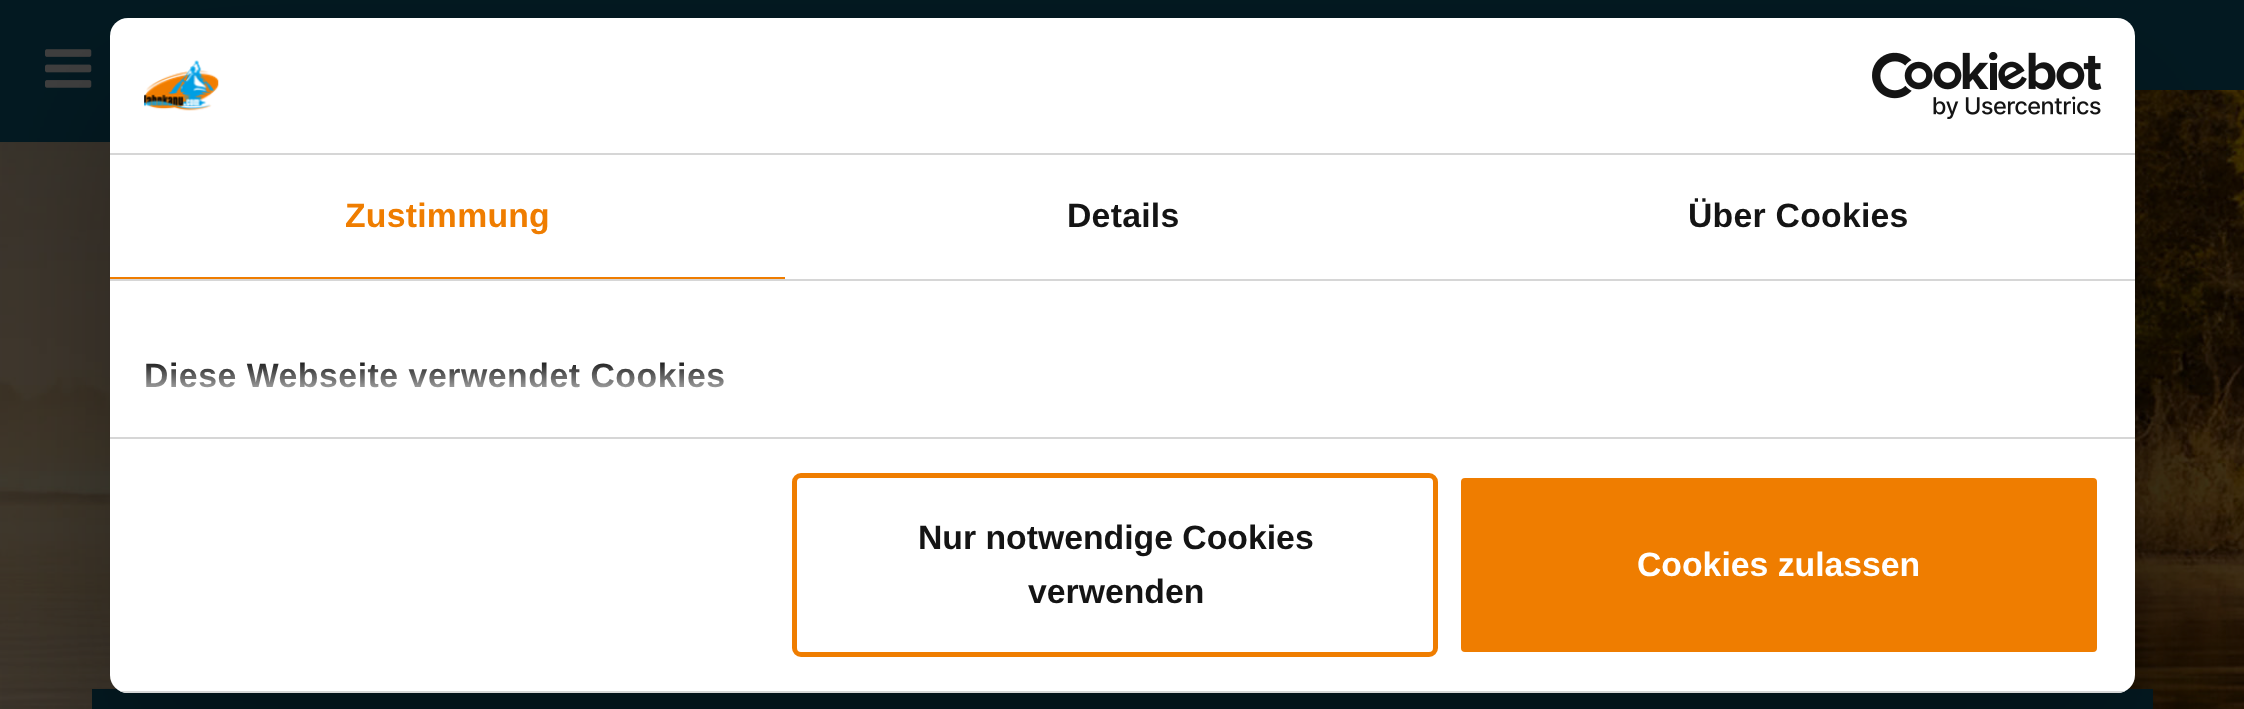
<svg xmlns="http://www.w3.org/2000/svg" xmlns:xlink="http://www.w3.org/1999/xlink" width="2244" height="709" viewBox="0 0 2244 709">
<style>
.cls-1{font:bold 33.75px Liberation Sans;letter-spacing:0.25px;fill:#ef7d00}
.cls-2{font:bold 33.75px Liberation Sans;letter-spacing:0.25px;fill:#141414}
.cls-3{font:bold 33.75px Liberation Sans;letter-spacing:0.55px;fill:#141414}
.cls-4{font:bold 33.75px Liberation Sans;fill:#141414}
.cls-5{font:bold 33.75px Liberation Sans;fill:#ffffff}
</style>
<defs>
<clipPath id="clip1"><rect x="110" y="18" width="2025" height="675" rx="18"/></clipPath>
<linearGradient id="g1" gradientUnits="userSpaceOnUse" x1="1108" y1="437" x2="1108" y2="360"><stop offset="0" stop-color="#ffffff"/><stop offset="0.5" stop-color="#ffffff" stop-opacity="0.8"/><stop offset="1" stop-color="#ffffff" stop-opacity="0"/></linearGradient>
</defs>
<rect width="100%" height="100%" fill="#041a22"/>
<image xlink:href="image1.png" x="0" y="90" width="2244" height="619"/>
<rect fill="#041a22" x="0" y="90" width="266" height="52"/>
<image xlink:href="image0.png" x="45" y="49" width="47" height="39"/>
<rect fill="#041a22" x="92" y="689" width="2061" height="20"/>
<rect fill="#000000" fill-opacity="0.3" filter="blur(76.5px)" x="110" y="90" width="2025" height="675" rx="18"/>
<rect fill="#ffffff" x="110" y="18" width="2025" height="675" rx="18"/>
<rect fill="#d6d6d6" x="110" y="153" width="2025" height="2"/>
<image xlink:href="image2.png" x="144" y="60" width="75" height="51"/>
<image xlink:href="image3.png" x="1872" y="52" width="230" height="67"/>
<rect fill="#d6d6d6" x="110" y="279" width="2025" height="2"/>
<rect fill="#ef7d00" x="110" y="277" width="675" height="2"/>
<rect fill="#d6d6d6" x="110" y="437" width="2025" height="2"/>
<g clip-path="url(#clip1)">
<rect fill="#d6d6d6" x="120" y="691" width="2005" height="2"/>
</g>
<rect fill="none" stroke="#ef7d00" stroke-width="5" x="794.5" y="475.5" width="641" height="179" rx="6.5"/>
<rect fill="#ef7d00" stroke="#ffffff" stroke-width="5" x="1458.5" y="475.5" width="641" height="179" rx="6.5"/>
<text class="cls-1" x="345" y="227">Zustimmung</text>
<text class="cls-2" x="1067" y="227">Details</text>
<text class="cls-2" x="1688" y="227">Über Cookies</text>
<text class="cls-3" x="144" y="387">Diese Webseite verwendet Cookies</text>
<rect fill="url(#g1)" x="146" y="362" width="578" height="26"/>
<text class="cls-4" x="918" y="549">Nur notwendige Cookies</text>
<text class="cls-4" x="1028" y="603">verwenden</text>
<text class="cls-5" x="1637" y="576">Cookies zulassen</text>
</svg>
